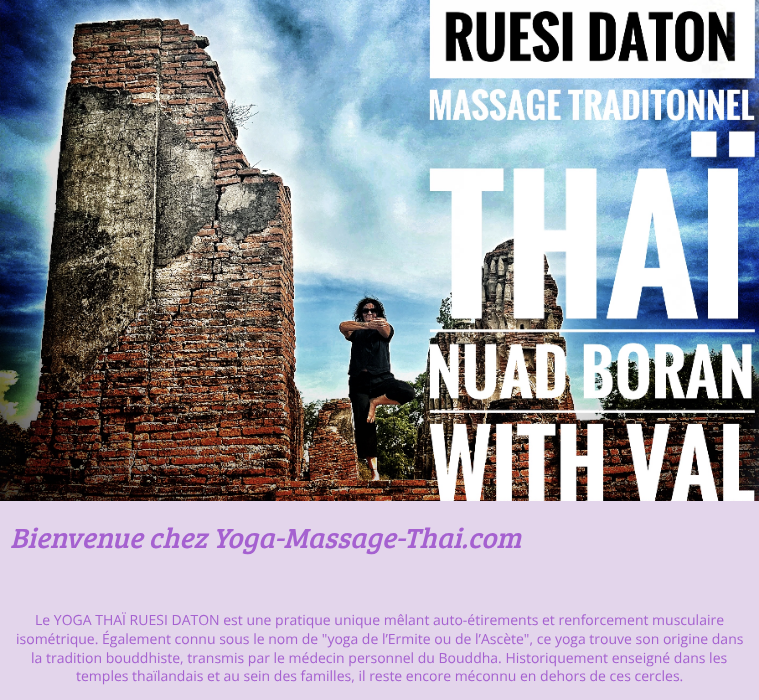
<svg xmlns="http://www.w3.org/2000/svg" xmlns:xlink="http://www.w3.org/1999/xlink" width="759" height="700" viewBox="0 0 759 700">
<style>
.cls-1{font:italic 28.75px Bree Serif;fill:#a561d0}
.cls-2{font:14px Open Sans;fill:#a561d0}
</style>
<rect width="100%" height="100%" fill="#ffffff"/>
<image xlink:href="image0.png" x="0" y="0" width="759" height="501"/>
<rect fill="#e3d5eb" x="0" y="501" width="759" height="199"/>
<text class="cls-1" x="10" y="548">Bienvenue chez Yoga-Massage-Thai.com</text>
<text class="cls-2" x="35" y="625">Le YOGA THAÏ RUESI DATON est une pratique unique mêlant auto-étirements et renforcement musculaire</text>
<text class="cls-2" x="16" y="644">isométrique. Également connu sous le nom de "yoga de l’Ermite ou de l’Ascète", ce yoga trouve son origine dans</text>
<text class="cls-2" x="31" y="663">la tradition bouddhiste, transmis par le médecin personnel du Bouddha. Historiquement enseigné dans les</text>
<text class="cls-2" x="76" y="681">temples thaïlandais et au sein des familles, il reste encore méconnu en dehors de ces cercles.</text>
</svg>
